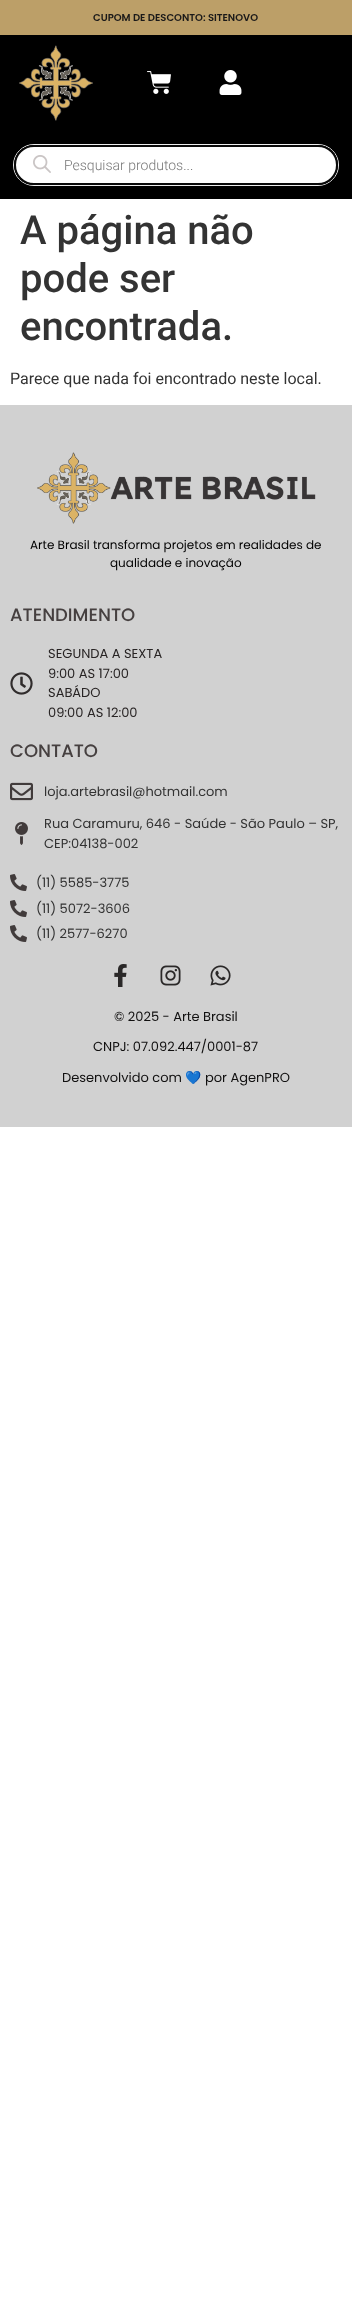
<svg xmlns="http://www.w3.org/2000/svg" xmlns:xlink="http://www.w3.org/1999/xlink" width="352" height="2316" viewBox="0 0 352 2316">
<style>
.cls-1{font:600 10px Poppins;fill:#1a1919}
.cls-2{font:300 14px Roboto;fill:#777777}
.cls-3{font:500 40px Roboto;fill:#333333}
.cls-4{font:16px Roboto;fill:#333333}
.cls-5{font:12px Poppins;fill:#000000}
.cls-6{font:500 18px Poppins;fill:#464040}
.cls-7{font:13px Poppins;fill:#282424}
.cls-8{font:13px Poppins;fill:#333333}
.cls-9{font:13px Poppins;fill:#111010}
.cls-10{font:13px Noto Color Emoji;fill:#111010}
</style>
<rect width="100%" height="100%" fill="#ffffff"/>
<rect fill="#bc9f68" x="0" y="0" width="352" height="35"/>
<rect fill="#000000" x="0" y="35" width="352" height="164"/>
<image xlink:href="image0.png" x="19" y="45" width="74" height="76"/>
<image xlink:href="image1.png" x="147" y="71" width="24" height="23"/>
<image xlink:href="image2.png" x="219" y="70" width="23" height="25"/>
<rect fill="none" stroke="#eeeeee" x="13.5" y="144.5" width="325" height="41" rx="20.5"/>
<rect fill="#ffffff" stroke="#0a0a0a" stroke-width="2" x="15" y="146" width="322" height="38" rx="19"/>
<image xlink:href="image3.png" x="33" y="155" width="18" height="18"/>
<rect fill="#d1d1d1" x="0" y="405" width="352" height="722"/>
<image xlink:href="image4.png" x="37" y="452" width="279" height="72"/>
<image xlink:href="image5.png" x="10" y="672" width="23" height="23"/>
<image xlink:href="image6.png" x="10" y="782" width="23" height="19"/>
<image xlink:href="image7.png" x="15" y="822" width="13" height="23"/>
<image xlink:href="image8.png" x="10" y="874" width="17" height="17"/>
<image xlink:href="image8.png" x="10" y="900" width="17" height="17"/>
<image xlink:href="image8.png" x="10" y="925" width="17" height="17"/>
<image xlink:href="image9.png" x="114" y="964" width="13" height="23"/>
<image xlink:href="image10.png" x="160" y="965" width="21" height="21"/>
<image xlink:href="image11.png" x="210" y="965" width="21" height="21"/>
<text class="cls-1" x="93" y="21">CUPOM DE DESCONTO: SITENOVO</text>
<text class="cls-2" x="64" y="170">Pesquisar produtos...</text>
<text class="cls-3"><tspan x="20" y="244">A página não</tspan><tspan x="20" y="292">pode ser</tspan><tspan x="20" y="340">encontrada.</tspan></text>
<text class="cls-4" x="10" y="384">Parece que nada foi encontrado neste local.</text>
<text class="cls-5" x="30" y="549">Arte Brasil transforma projetos em realidades de</text>
<text class="cls-5" x="110" y="567">qualidade e inovação</text>
<text class="cls-6" x="10" y="621">ATENDIMENTO</text>
<text class="cls-7"><tspan x="48" y="658">SEGUNDA A SEXTA</tspan><tspan x="48" y="678">9:00 AS 17:00</tspan><tspan x="48" y="697">SABÁDO</tspan><tspan x="48" y="717">09:00 AS 12:00</tspan></text>
<text class="cls-6" x="10" y="757">CONTATO</text>
<text class="cls-8" x="44" y="796">loja.artebrasil@hotmail.com</text>
<text class="cls-8"><tspan x="44" y="828">Rua Caramuru, 646 - Saúde - São Paulo – SP,</tspan><tspan x="44" y="848">CEP:04138-002</tspan></text>
<text class="cls-8" x="36" y="887">(11) 5585-3775</text>
<text class="cls-8"><tspan x="36" y="913">(11) 5072-3606</tspan><tspan x="36" y="938">(11) 2577-6270</tspan></text>
<text class="cls-9" x="114" y="1021">© 2025 - Arte Brasil</text>
<text class="cls-9" x="93" y="1051">CNPJ: 07.092.447/0001-87</text>
<text class="cls-9" x="62" y="1082">Desenvolvido com</text>
<text class="cls-10" x="185" y="1082">💙</text>
<text class="cls-9" x="205" y="1082">por AgenPRO</text>
</svg>
